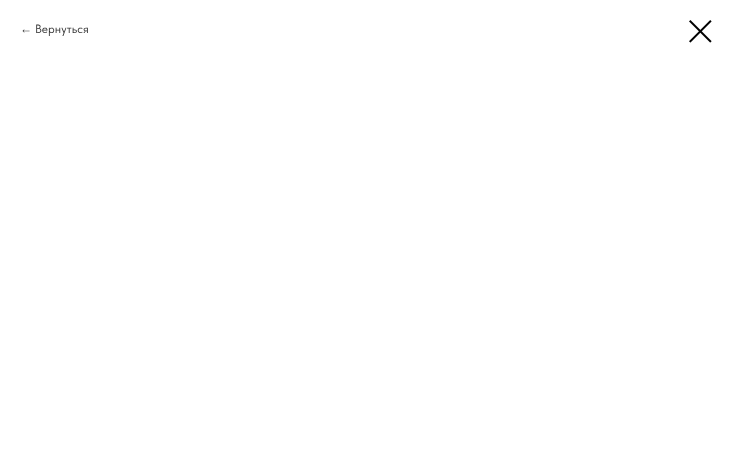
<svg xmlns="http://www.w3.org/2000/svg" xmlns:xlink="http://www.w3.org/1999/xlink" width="732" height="453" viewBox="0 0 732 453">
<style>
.cls-1{font:12px Liberation Sans;fill:#333333}
.cls-2{font:12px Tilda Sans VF;fill:#333333}
</style>
<rect width="100%" height="100%" fill="#ffffff"/>
<image xlink:href="image0.png" x="689" y="20" width="23" height="23"/>
<text class="cls-1" x="20" y="33">←</text>
<text class="cls-2" x="35" y="33">Вернуться</text>
</svg>
